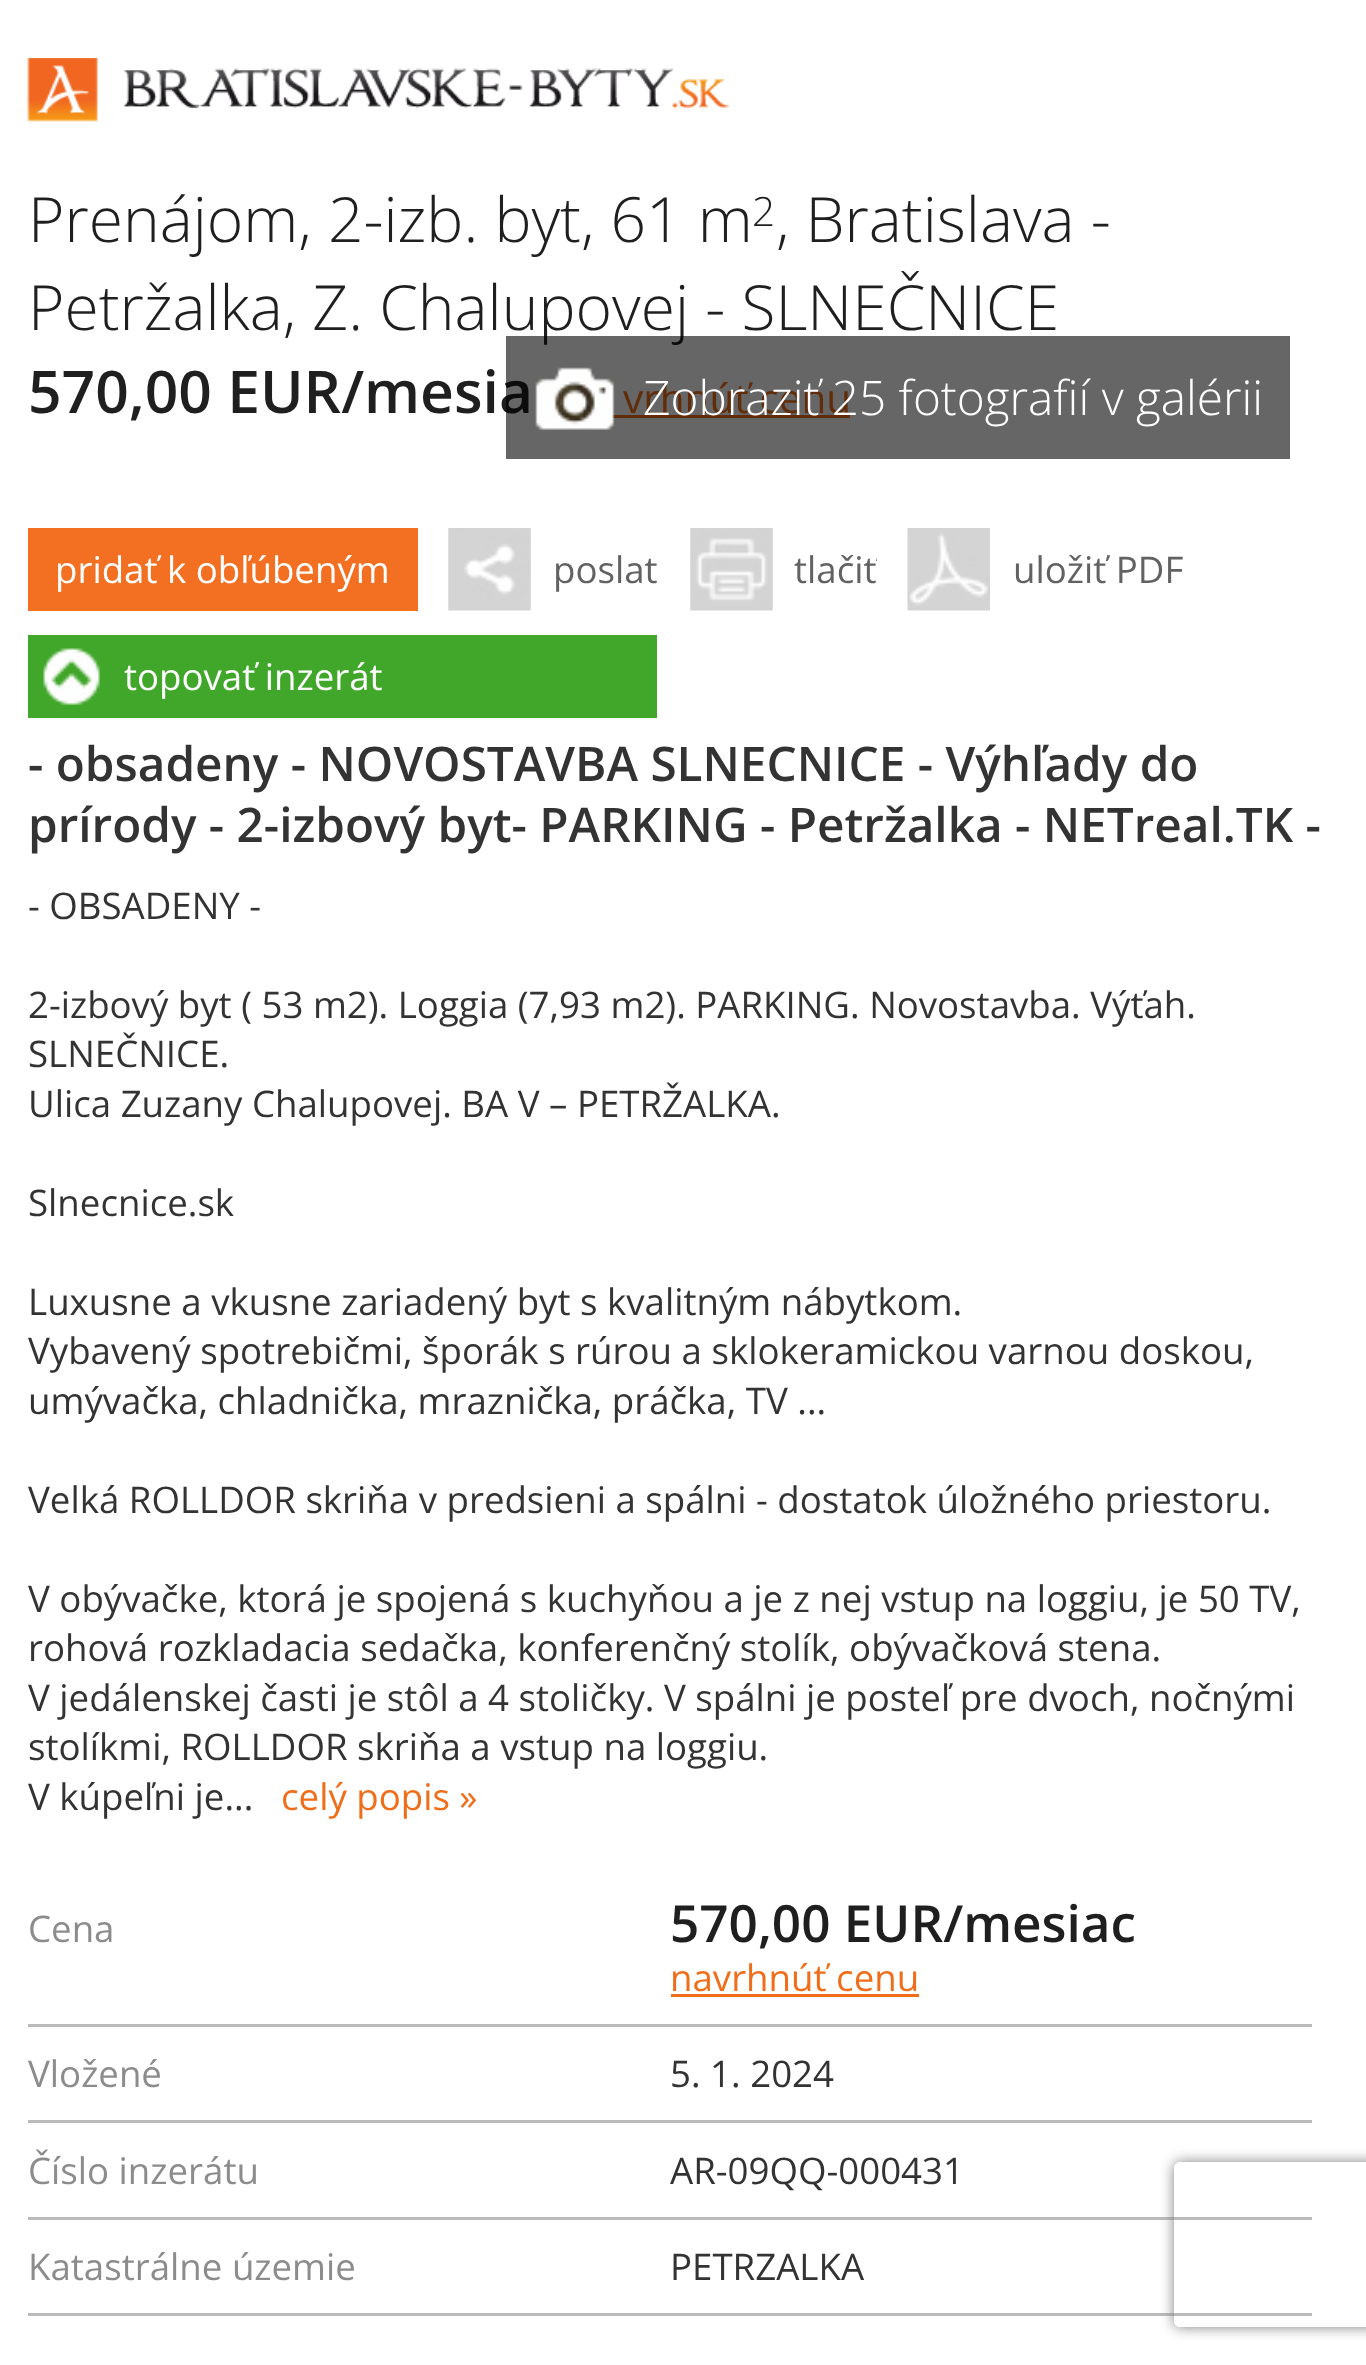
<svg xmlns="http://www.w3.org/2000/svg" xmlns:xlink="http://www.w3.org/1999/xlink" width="1366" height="2365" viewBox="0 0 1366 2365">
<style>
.cls-1{font:300 62.3px Open Sans;fill:#1f1f1f}
.cls-2{font:300 40.5px Open Sans;fill:#1f1f1f}
.cls-3{font:600 58.75px Open Sans;fill:#1f1f1f}
.cls-4{font:40.5px Open Sans;fill:#f06e1a}
.cls-5{font:300 47.7px Open Sans;fill:#ffffff}
.cls-6{font:36.65px Open Sans;fill:#ffffff}
.cls-7{font:36.65px Open Sans;fill:#626262}
.cls-8{font:600 47.7px Open Sans;fill:#333333}
.cls-9{font:36.65px Open Sans;fill:#333333}
.cls-10{font:36.65px Open Sans;fill:#f06e1a}
.cls-11{font:36.65px Open Sans;fill:#8c8c8c}
.cls-12{font:600 51.25px Open Sans;fill:#1f1f1f}
</style>
<defs>
<clipPath id="clip1"><path d="M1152 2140H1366V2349H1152ZM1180 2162H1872C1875.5 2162 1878 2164.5 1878 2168V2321C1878 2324.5 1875.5 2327 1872 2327H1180C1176.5 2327 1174 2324.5 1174 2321V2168C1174 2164.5 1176.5 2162 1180 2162Z" clip-rule="evenodd"/></clipPath>
<clipPath id="clip2"><rect x="448" y="528" width="209" height="83"/></clipPath>
<clipPath id="clip3"><rect x="690" y="528" width="187" height="83"/></clipPath>
</defs>
<rect width="100%" height="100%" fill="#ffffff"/>
<image xlink:href="image0.png" x="27" y="58" width="702" height="64"/>
<rect fill="#f06e1a" x="612" y="415" width="238" height="3"/>
<rect fill="#f37022" x="28" y="528" width="390" height="83"/>
<image xlink:href="image2.png" x="448" y="528" width="83" height="83"/>
<image xlink:href="image3.png" x="690" y="528" width="83" height="83"/>
<image xlink:href="image4.png" x="907" y="528" width="83" height="83"/>
<rect fill="#41a72a" x="28" y="635" width="629" height="83"/>
<image xlink:href="image5.png" x="43" y="648" width="57" height="57"/>
<rect fill="#bbbbbb" x="28" y="2024" width="1284" height="3"/>
<rect fill="#f06e1a" x="671" y="1994" width="248" height="3"/>
<rect fill="#bbbbbb" x="28" y="2120" width="1284" height="3"/>
<rect fill="#bbbbbb" x="28" y="2217" width="1284" height="3"/>
<rect fill="#bbbbbb" x="28" y="2313" width="1284" height="3"/>
<g clip-path="url(#clip1)">
<rect fill="#808080" filter="blur(7px)" x="1174" y="2162" width="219" height="165" rx="6"/>
</g>
<text class="cls-1" x="28" y="242">Prenájom, 2-izb. byt, 61 m</text>
<text class="cls-2" x="752" y="226">2</text>
<text class="cls-1" x="776" y="242">, Bratislava -</text>
<text class="cls-1" x="28" y="330">Petržalka, Z. Chalupovej - SLNEČNICE</text>
<text class="cls-3" x="28" y="413">570,00 EUR/mesia</text>
<text class="cls-4" x="623" y="413">vrhnúť cenu</text>
<rect fill="#000000" fill-opacity="0.6" x="506" y="336" width="784" height="123"/>
<image xlink:href="image1.png" x="535" y="367" width="80" height="63"/>
<text class="cls-5" x="643" y="415">Zobraziť 25 fotografií v galérii</text>
<text class="cls-6" x="55" y="583">pridať k obľúbeným</text>
<g clip-path="url(#clip2)">
<text class="cls-7" x="553" y="583">poslať</text>
</g>
<g clip-path="url(#clip3)">
<text class="cls-7" x="794" y="583">tlačiť</text>
</g>
<text class="cls-7" x="1013" y="583">uložiť PDF</text>
<text class="cls-6" x="124" y="690">topovať inzerát</text>
<text class="cls-8"><tspan x="28" y="781">- obsadeny - NOVOSTAVBA SLNECNICE - Výhľady do</tspan><tspan x="28" y="842">prírody - 2-izbový byt- PARKING - Petržalka - NETreal.TK -</tspan></text>
<text class="cls-9" x="28" y="919">- OBSADENY -</text>
<text class="cls-9"><tspan x="28" y="1018">2-izbový byt ( 53 m2). Loggia (7,93 m2). PARKING. Novostavba. Výťah.</tspan><tspan x="28" y="1067">SLNEČNICE.</tspan><tspan x="28" y="1117">Ulica Zuzany Chalupovej. BA V – PETRŽALKA.</tspan></text>
<text class="cls-9" x="28" y="1216">Slnecnice.sk</text>
<text class="cls-9"><tspan x="28" y="1315">Luxusne a vkusne zariadený byt s kvalitným nábytkom.</tspan><tspan x="28" y="1364">Vybavený spotrebičmi, šporák s rúrou a sklokeramickou varnou doskou,</tspan><tspan x="28" y="1414">umývačka, chladnička, mraznička, práčka, TV ...</tspan></text>
<text class="cls-9" x="28" y="1513">Velká ROLLDOR skriňa v predsieni a spálni - dostatok úložného priestoru.</text>
<text class="cls-9"><tspan x="28" y="1612">V obývačke, ktorá je spojená s kuchyňou a je z nej vstup na loggiu, je 50 TV,</tspan><tspan x="28" y="1661">rohová rozkladacia sedačka, konferenčný stolík, obývačková stena.</tspan><tspan x="28" y="1711">V jedálenskej časti je stôl a 4 stoličky. V spálni je posteľ pre dvoch, nočnými</tspan><tspan x="28" y="1760">stolíkmi, ROLLDOR skriňa a vstup na loggiu.</tspan><tspan x="28" y="1810">V kúpeľni je...</tspan></text>
<text class="cls-10" x="281" y="1810">celý popis »</text>
<text class="cls-11" x="28" y="1942">Cena</text>
<text class="cls-12" x="670" y="1942">570,00 EUR/mesiac</text>
<text class="cls-10" x="670" y="1991">navrhnúť cenu</text>
<text class="cls-11" x="28" y="2087">Vložené</text>
<text class="cls-9" x="670" y="2087">5. 1. 2024</text>
<text class="cls-11" x="28" y="2184">Číslo inzerátu</text>
<text class="cls-9" x="670" y="2184">AR-09QQ-000431</text>
<text class="cls-11" x="28" y="2280">Katastrálne územie</text>
<text class="cls-9" x="670" y="2280">PETRZALKA</text>
</svg>
